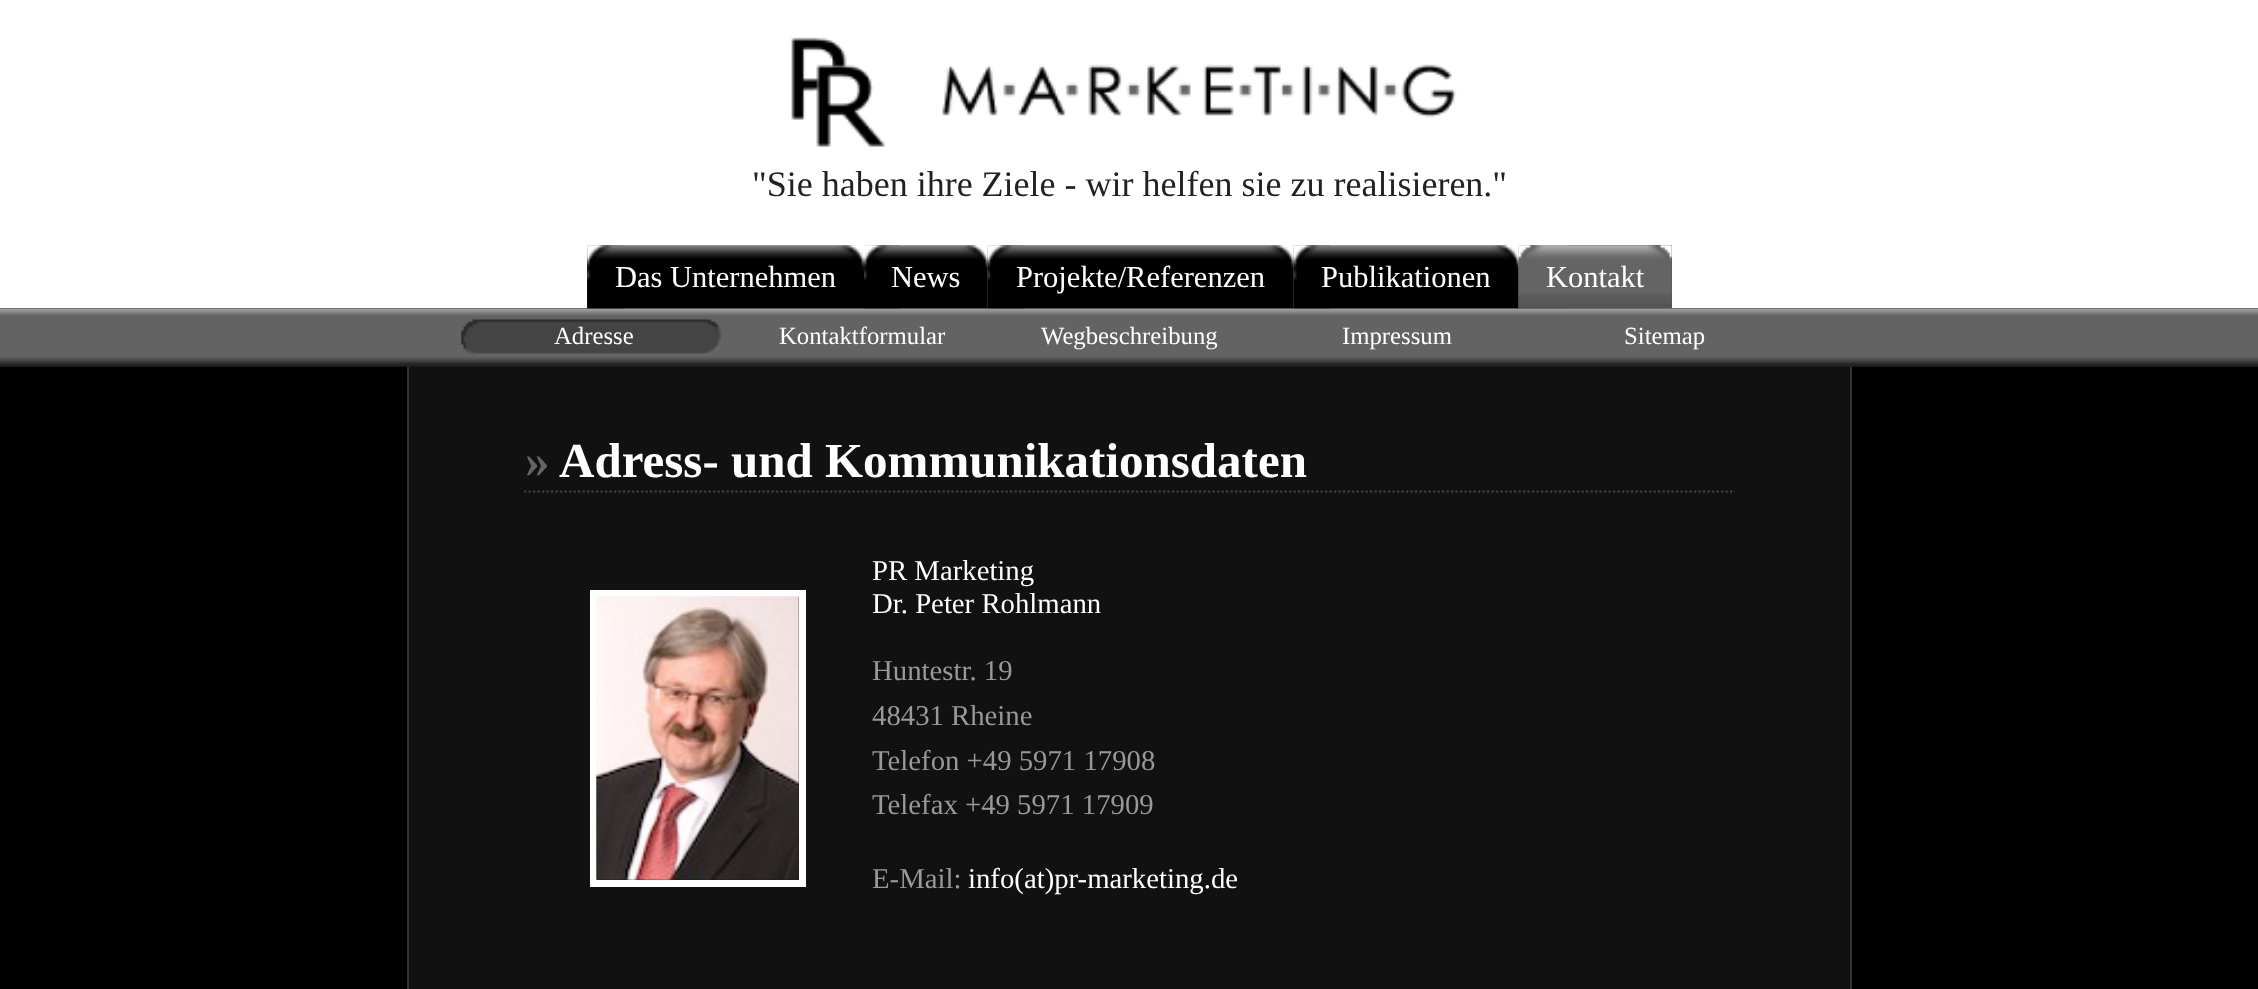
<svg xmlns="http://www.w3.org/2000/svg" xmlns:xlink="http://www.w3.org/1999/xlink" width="2258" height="989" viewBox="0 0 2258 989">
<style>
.cls-1{font:36px Liberation Serif;fill:#222222}
.cls-2{font:30.5px Liberation Serif;fill:#ffffff}
.cls-3{font:24.75px Liberation Serif;fill:#ffffff}
.cls-4{font:bold 49px Liberation Serif;fill:#646464}
.cls-5{font:bold 49px Liberation Serif;fill:#ffffff}
.cls-6{font:28.75px Liberation Serif;fill:#ffffff}
.cls-7{font:28.75px Liberation Serif;fill:#999999}
</style>
<rect width="100%" height="100%" fill="#000000"/>
<rect fill="#ffffff" x="0" y="0" width="2258" height="308"/>
<image xlink:href="image0.png" x="791" y="37" width="666" height="110"/>
<rect fill="#111111" x="409" y="366" width="1441" height="623"/>
<rect fill="#333333" x="1850" y="366" width="2" height="623"/>
<rect fill="#333333" x="407" y="366" width="2" height="623"/>
<image xlink:href="image11.png" x="0" y="308" width="2258" height="59"/>
<image xlink:href="image1.png" x="587" y="245" width="277" height="64"/>
<image xlink:href="image2.png" x="587" y="245" width="37" height="64"/>
<image xlink:href="image3.png" x="864" y="245" width="124" height="64"/>
<image xlink:href="image4.png" x="864" y="245" width="36" height="64"/>
<image xlink:href="image5.png" x="987" y="245" width="307" height="64"/>
<image xlink:href="image6.png" x="987" y="245" width="37" height="64"/>
<image xlink:href="image7.png" x="1293" y="245" width="226" height="64"/>
<image xlink:href="image8.png" x="1293" y="245" width="37" height="64"/>
<rect fill="#ff0000" x="1519" y="245" width="153" height="63"/>
<image xlink:href="image9.png" x="1518" y="245" width="154" height="64"/>
<image xlink:href="image10.png" x="1518" y="245" width="51" height="64"/>
<image xlink:href="image12.png" x="461" y="319" width="261" height="37"/>
<path fill="none" stroke="#444444" stroke-width="2.2" stroke-dasharray="2.25 2.25" d="M524 491.5H1735"/>
<rect fill="none" stroke="#ffffff" stroke-width="7" x="593.5" y="593.5" width="209" height="290"/>
<image xlink:href="image13.png" x="596" y="596" width="203" height="284"/>
<text class="cls-1" x="752" y="196">"Sie haben ihre Ziele - wir helfen sie zu realisieren."</text>
<text class="cls-2" x="615" y="287">Das Unternehmen</text>
<text class="cls-2" x="891" y="287">News</text>
<text class="cls-2" x="1016" y="287">Projekte/Referenzen</text>
<text class="cls-2" x="1321" y="287">Publikationen</text>
<text class="cls-2" x="1546" y="287">Kontakt</text>
<text class="cls-3" x="554" y="344">Adresse</text>
<text class="cls-3" x="779" y="344">Kontaktformular</text>
<text class="cls-3" x="1041" y="344">Wegbeschreibung</text>
<text class="cls-3" x="1342" y="344">Impressum</text>
<text class="cls-3" x="1624" y="344">Sitemap</text>
<text class="cls-4" x="525" y="477">»</text>
<text class="cls-5" x="559" y="477">Adress- und Kommunikationsdaten</text>
<text class="cls-6"><tspan x="872" y="580">PR Marketing</tspan><tspan x="872" y="613">Dr. Peter Rohlmann</tspan></text>
<text class="cls-7"><tspan x="872" y="680">Huntestr. 19</tspan><tspan x="872" y="725">48431 Rheine</tspan><tspan x="872" y="770">Telefon +49 5971 17908</tspan><tspan x="872" y="814">Telefax +49 5971 17909</tspan></text>
<text class="cls-7" x="872" y="888">E-Mail:</text>
<text class="cls-6" x="968" y="888">info(at)pr-marketing.de</text>
</svg>
